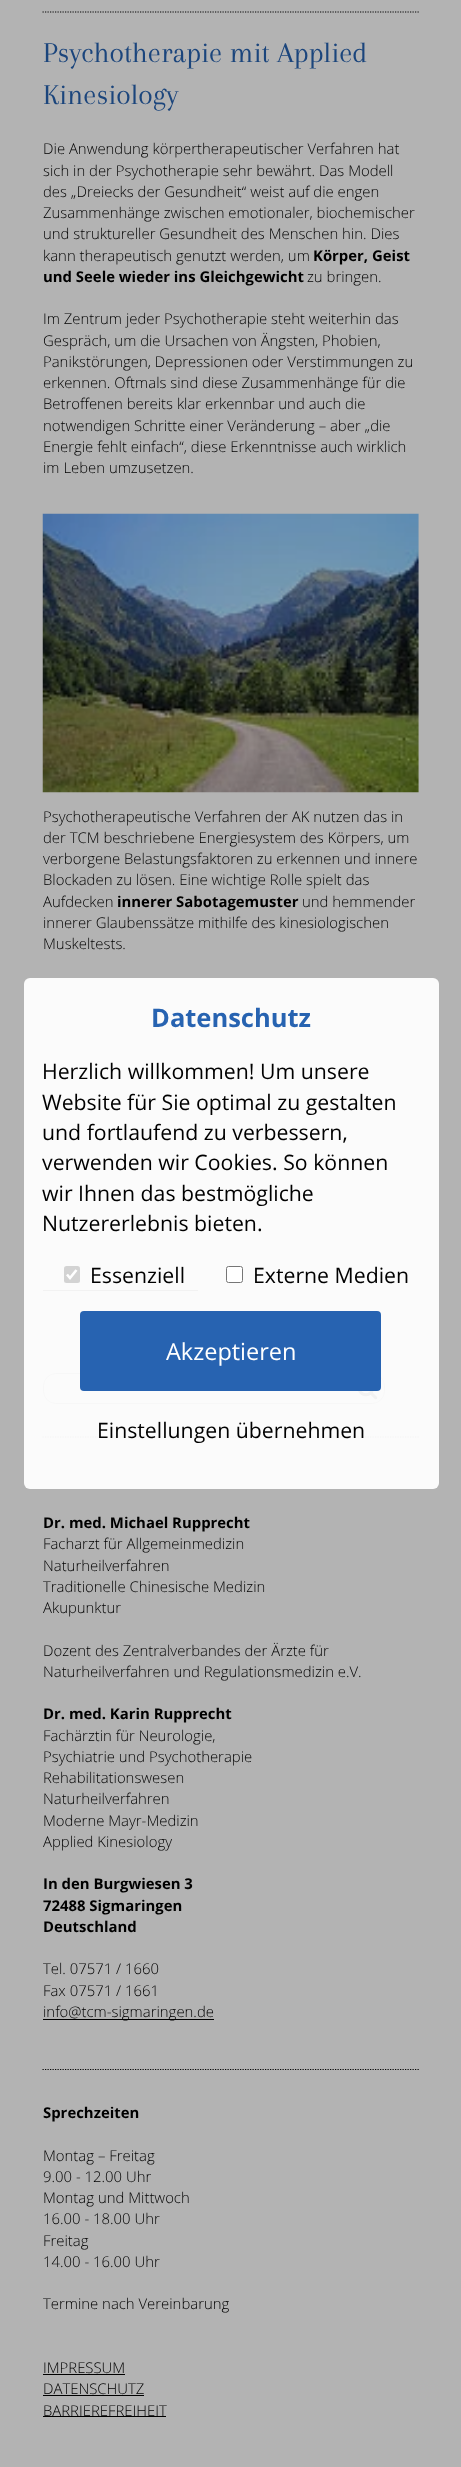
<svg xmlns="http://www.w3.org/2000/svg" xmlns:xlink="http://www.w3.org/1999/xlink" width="461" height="2467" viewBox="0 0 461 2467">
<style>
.cls-1{font:29.75px Arapey;fill:#1b457c}
.cls-2{font:300 14.9px Open Sans;fill:#000000}
.cls-3{font:bold 14.9px Open Sans;fill:#000000}
.cls-4{font:bold 25.5px Open Sans;fill:#2763b1}
.cls-5{font:21.25px Open Sans;fill:#000000}
.cls-6{font:23.5px Open Sans;fill:#ffffff}
</style>
<rect width="100%" height="100%" fill="#b3b3b3"/>
<path fill="none" stroke="#080808" stroke-width="1.2" stroke-dasharray="1.25 1.25" d="M42.5 12H419"/>
<image xlink:href="image0.png" x="42" y="513" width="377" height="280"/>
<rect fill="#000000" x="43" y="1290" width="155" height="1"/>
<path fill="none" stroke="#080808" stroke-width="1.2" stroke-dasharray="1.25 1.25" d="M42.5 1437H419"/>
<rect fill="none" stroke="#6b6b6b" x="43.5" y="1373.5" width="341" height="30" rx="12.5"/>
<image xlink:href="image1.png" x="358" y="1391" width="20" height="9"/>
<path fill="none" stroke="#080808" stroke-width="1.2" stroke-dasharray="1.25 1.25" d="M42.5 2069.5H419"/>
<rect fill="#000000" x="43" y="2019" width="171" height="1"/>
<rect fill="#000000" x="43" y="2374" width="82" height="1"/>
<rect fill="#000000" x="43" y="2395" width="101" height="1"/>
<rect fill="#000000" x="43" y="2416" width="123" height="1"/>
<rect fill="#ffffff" fill-opacity="0.95" x="24" y="978" width="415" height="511" rx="6"/>
<rect fill="#767676" fill-opacity="0.3" x="64" y="1266" width="16" height="17" rx="2.5"/>
<path fill="none" stroke="#ffffff" stroke-width="2.6" d="M67 1274.5L70 1278L76.5 1270"/>
<rect fill="#ffffff" stroke="#767676" x="226.5" y="1266.5" width="16" height="16" rx="2"/>
<rect fill="#2763b1" x="80" y="1311" width="301" height="80" rx="4"/>
<text class="cls-1"><tspan x="43" y="62">Psychotherapie mit Applied</tspan><tspan x="43" y="104">Kinesiology</tspan></text>
<text class="cls-2"><tspan x="43" y="154">Die Anwendung körpertherapeutischer Verfahren hat</tspan><tspan x="43" y="176">sich in der Psychotherapie sehr bewährt. Das Modell</tspan><tspan x="43" y="197">des „Dreiecks der Gesundheit“ weist auf die engen</tspan><tspan x="43" y="218">Zusammenhänge zwischen emotionaler, biochemischer</tspan><tspan x="43" y="239">und struktureller Gesundheit des Menschen hin. Dies</tspan><tspan x="43" y="261">kann therapeutisch genutzt werden, um</tspan></text>
<text class="cls-3" x="313" y="261">Körper, Geist</text>
<text class="cls-3" x="43" y="282">und Seele wieder ins Gleichgewicht</text>
<text class="cls-2" x="307" y="282">zu bringen.</text>
<text class="cls-2"><tspan x="43" y="324">Im Zentrum jeder Psychotherapie steht weiterhin das</tspan><tspan x="43" y="346">Gespräch, um die Ursachen von Ängsten, Phobien,</tspan><tspan x="43" y="367">Panikstörungen, Depressionen oder Verstimmungen zu</tspan><tspan x="43" y="388">erkennen. Oftmals sind diese Zusammenhänge für die</tspan><tspan x="43" y="409">Betroffenen bereits klar erkennbar und auch die</tspan><tspan x="43" y="431">notwendigen Schritte einer Veränderung – aber „die</tspan><tspan x="43" y="452">Energie fehlt einfach“, diese Erkenntnisse auch wirklich</tspan><tspan x="43" y="473">im Leben umzusetzen.</tspan></text>
<text class="cls-2"><tspan x="43" y="822">Psychotherapeutische Verfahren der AK nutzen das in</tspan><tspan x="43" y="843">der TCM beschriebene Energiesystem des Körpers, um</tspan><tspan x="43" y="864">verborgene Belastungsfaktoren zu erkennen und innere</tspan><tspan x="43" y="885">Blockaden zu lösen. Eine wichtige Rolle spielt das</tspan><tspan x="43" y="907">Aufdecken</tspan></text>
<text class="cls-3" x="117" y="907">innerer Sabotagemuster</text>
<text class="cls-2" x="302" y="907">und hemmender</text>
<text class="cls-2"><tspan x="43" y="928">innerer Glaubenssätze mithilfe des kinesiologischen</tspan><tspan x="43" y="949">Muskeltests.</tspan></text>
<text class="cls-3" x="43" y="1528">Dr. med. Michael Rupprecht</text>
<text class="cls-2"><tspan x="43" y="1549">Facharzt für Allgemeinmedizin</tspan><tspan x="43" y="1571">Naturheilverfahren</tspan><tspan x="43" y="1592">Traditionelle Chinesische Medizin</tspan><tspan x="43" y="1613">Akupunktur</tspan></text>
<text class="cls-2"><tspan x="43" y="1656">Dozent des Zentralverbandes der Ärzte für</tspan><tspan x="43" y="1677">Naturheilverfahren und Regulationsmedizin e.V.</tspan></text>
<text class="cls-3" x="43" y="1719">Dr. med. Karin Rupprecht</text>
<text class="cls-2"><tspan x="43" y="1741">Fachärztin für Neurologie,</tspan><tspan x="43" y="1762">Psychiatrie und Psychotherapie</tspan><tspan x="43" y="1783">Rehabilitationswesen</tspan><tspan x="43" y="1804">Naturheilverfahren</tspan><tspan x="43" y="1826">Moderne Mayr-Medizin</tspan><tspan x="43" y="1847">Applied Kinesiology</tspan></text>
<text class="cls-3"><tspan x="43" y="1889">In den Burgwiesen 3</tspan><tspan x="43" y="1911">72488 Sigmaringen</tspan><tspan x="43" y="1932">Deutschland</tspan></text>
<text class="cls-2"><tspan x="43" y="1974">Tel. 07571 / 1660</tspan><tspan x="43" y="1996">Fax 07571 / 1661</tspan><tspan x="43" y="2017">info@tcm-sigmaringen.de</tspan></text>
<text class="cls-3" x="43" y="2118">Sprechzeiten</text>
<text class="cls-2"><tspan x="43" y="2161">Montag – Freitag</tspan><tspan x="43" y="2182">9.00 - 12.00 Uhr</tspan><tspan x="43" y="2203">Montag und Mittwoch</tspan><tspan x="43" y="2224">16.00 - 18.00 Uhr</tspan><tspan x="43" y="2246">Freitag</tspan><tspan x="43" y="2267">14.00 - 16.00 Uhr</tspan></text>
<text class="cls-2" x="43" y="2309">Termine nach Vereinbarung</text>
<text class="cls-2"><tspan x="43" y="2373">IMPRESSUM</tspan><tspan x="43" y="2394">DATENSCHUTZ</tspan><tspan x="43" y="2416">BARRIEREFREIHEIT</tspan></text>
<text class="cls-4" x="151" y="1027">Datenschutz</text>
<text class="cls-5"><tspan x="42" y="1079">Herzlich willkommen! Um unsere</tspan><tspan x="42" y="1110">Website für Sie optimal zu gestalten</tspan><tspan x="42" y="1140">und fortlaufend zu verbessern,</tspan><tspan x="42" y="1170">verwenden wir Cookies. So können</tspan><tspan x="42" y="1201">wir Ihnen das bestmögliche</tspan><tspan x="42" y="1231">Nutzererlebnis bieten.</tspan></text>
<text class="cls-5" x="90" y="1283">Essenziell</text>
<text class="cls-5" x="253" y="1283">Externe Medien</text>
<text class="cls-6" x="166" y="1360">Akzeptieren</text>
<text class="cls-5" x="97" y="1438">Einstellungen übernehmen</text>
</svg>
